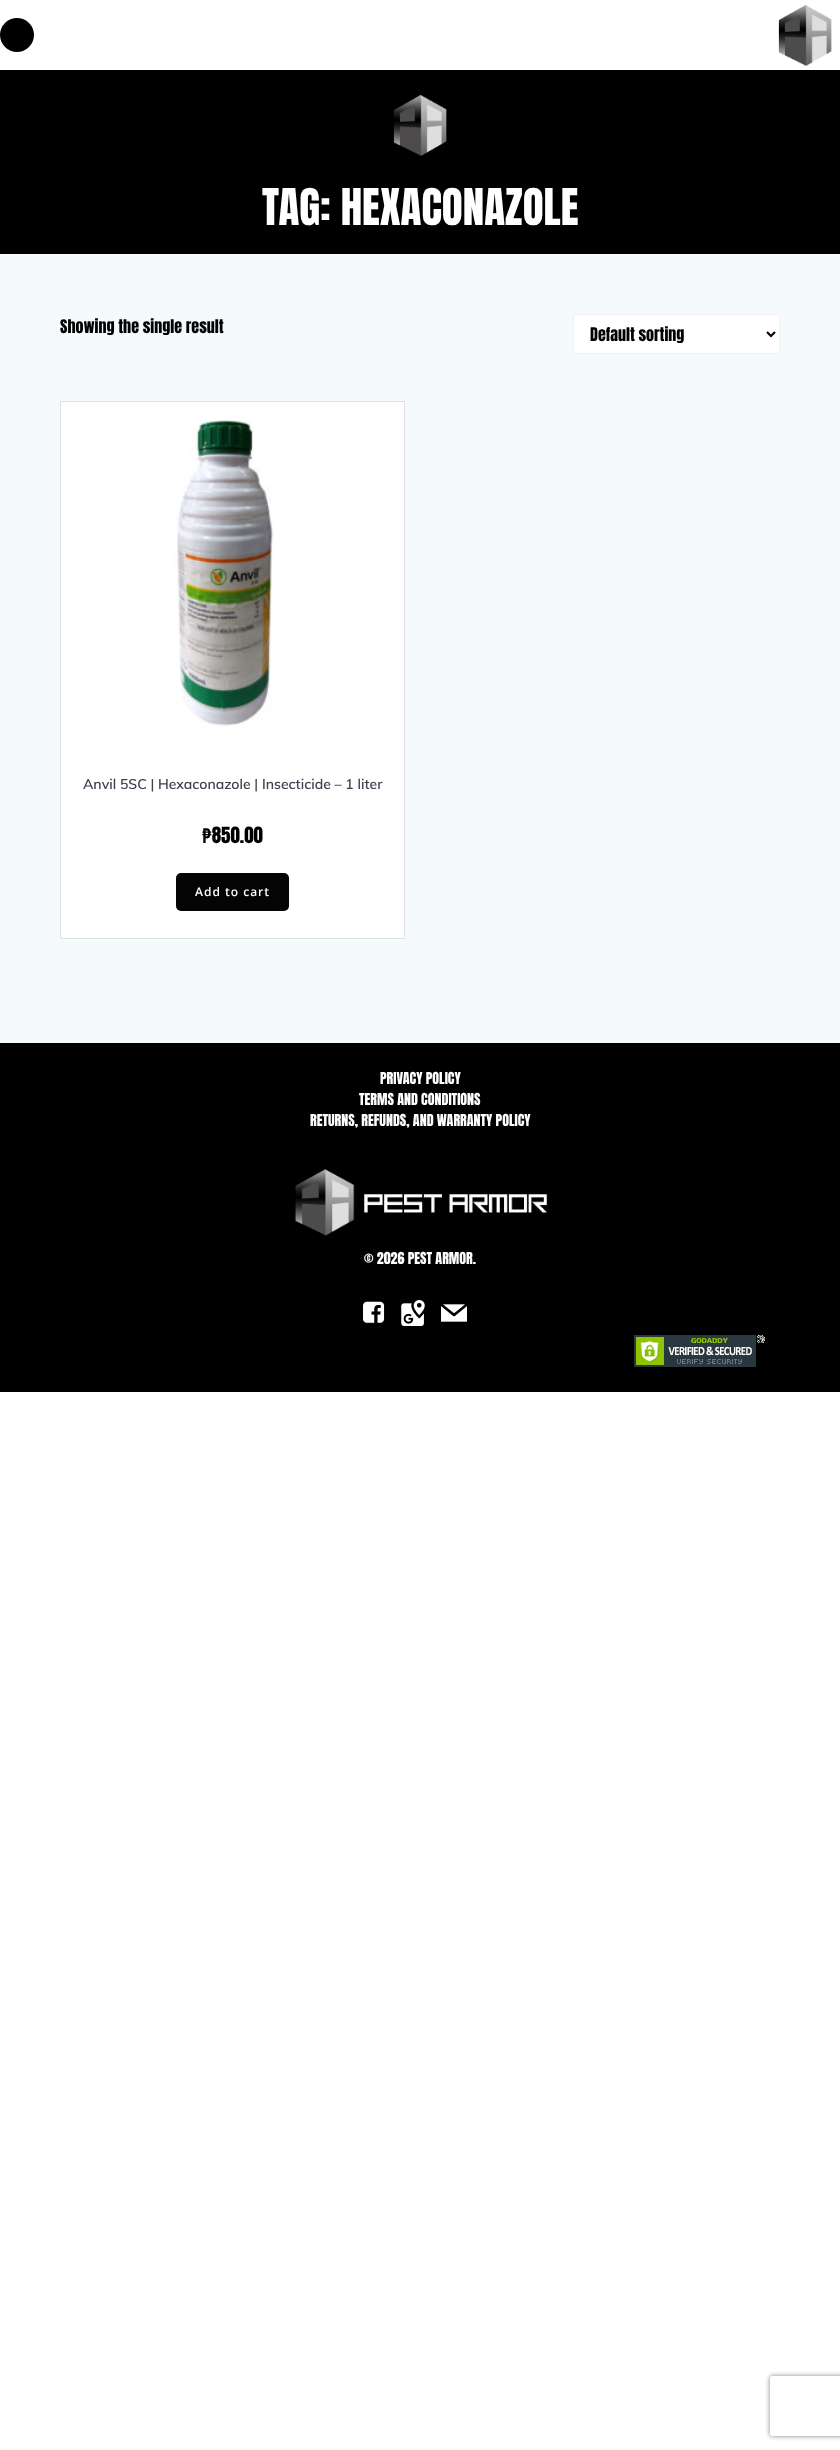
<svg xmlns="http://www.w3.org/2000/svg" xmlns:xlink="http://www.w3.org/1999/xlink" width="840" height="2450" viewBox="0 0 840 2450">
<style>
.cls-1{font:43px Anton;fill:#ffffff}
.cls-2{font:16px Anton;fill:#000000}
.cls-3{font:600 14px Muli;fill:#3c424f}
.cls-4{font:19px Anton;fill:#000000}
.cls-5{font:600 12px Open Sans;letter-spacing:1px;fill:#ffffff}
.cls-6{font:14px Anton;fill:#ffffff}
</style>
<defs>
<clipPath id="clip1"><path d="M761 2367H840V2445H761ZM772 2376H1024C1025 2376 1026 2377 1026 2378V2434C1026 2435 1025 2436 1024 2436H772C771 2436 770 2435 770 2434V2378C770 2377 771 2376 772 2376Z" clip-rule="evenodd"/></clipPath>
</defs>
<rect width="100%" height="100%" fill="#ffffff"/>
<circle fill="#000000" cx="17" cy="35" r="17"/>
<image xlink:href="image0.png" x="778" y="4" width="54" height="63"/>
<rect fill="#000000" x="0" y="70" width="840" height="184"/>
<image xlink:href="image1.png" x="393" y="94" width="54" height="62"/>
<rect fill="#f5fafd" x="0" y="254" width="840" height="789"/>
<rect fill="#ffffff" stroke="#f1f1f1" x="573.5" y="314.5" width="206" height="39" rx="2.5"/>
<path fill="none" stroke="#000000" stroke-width="2" d="M767 332L771 336L775 332"/>
<rect fill="#ffffff" stroke="#e0e1e1" x="60.5" y="401.5" width="344" height="537"/>
<image xlink:href="image2.png" x="171" y="420" width="103" height="309"/>
<rect fill="#040404" x="176" y="873" width="113" height="38" rx="5"/>
<rect fill="#000000" x="0" y="1043" width="840" height="349"/>
<image xlink:href="image3.png" x="294" y="1169" width="253" height="67"/>
<image xlink:href="image4.png" x="363" y="1301" width="22" height="22"/>
<image xlink:href="image5.png" x="401" y="1300" width="24" height="26"/>
<image xlink:href="image6.png" x="441" y="1304" width="26" height="18"/>
<image xlink:href="image7.png" x="634" y="1335" width="131" height="32"/>
<g clip-path="url(#clip1)">
<rect fill="#808080" filter="blur(2.5px)" x="770" y="2376" width="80" height="60" rx="2"/>
</g>
<text class="cls-1" x="262" y="225">TAG: HEXACONAZOLE</text>
<text class="cls-2" x="60" y="333">Showing the single result</text>
<text class="cls-2" x="590" y="341">Default sorting</text>
<text class="cls-3" x="83" y="789">Anvil 5SC | Hexaconazole | Insecticide – 1 liter</text>
<text class="cls-4" x="202" y="843">₱850.00</text>
<text class="cls-5" x="195" y="896">Add to cart</text>
<text class="cls-6" x="380" y="1084">PRIVACY POLICY</text>
<text class="cls-6" x="359" y="1105">TERMS AND CONDITIONS</text>
<text class="cls-6" x="310" y="1126">RETURNS, REFUNDS, AND WARRANTY POLICY</text>
<text class="cls-6" x="364" y="1264">© 2026 PEST ARMOR.</text>
</svg>
